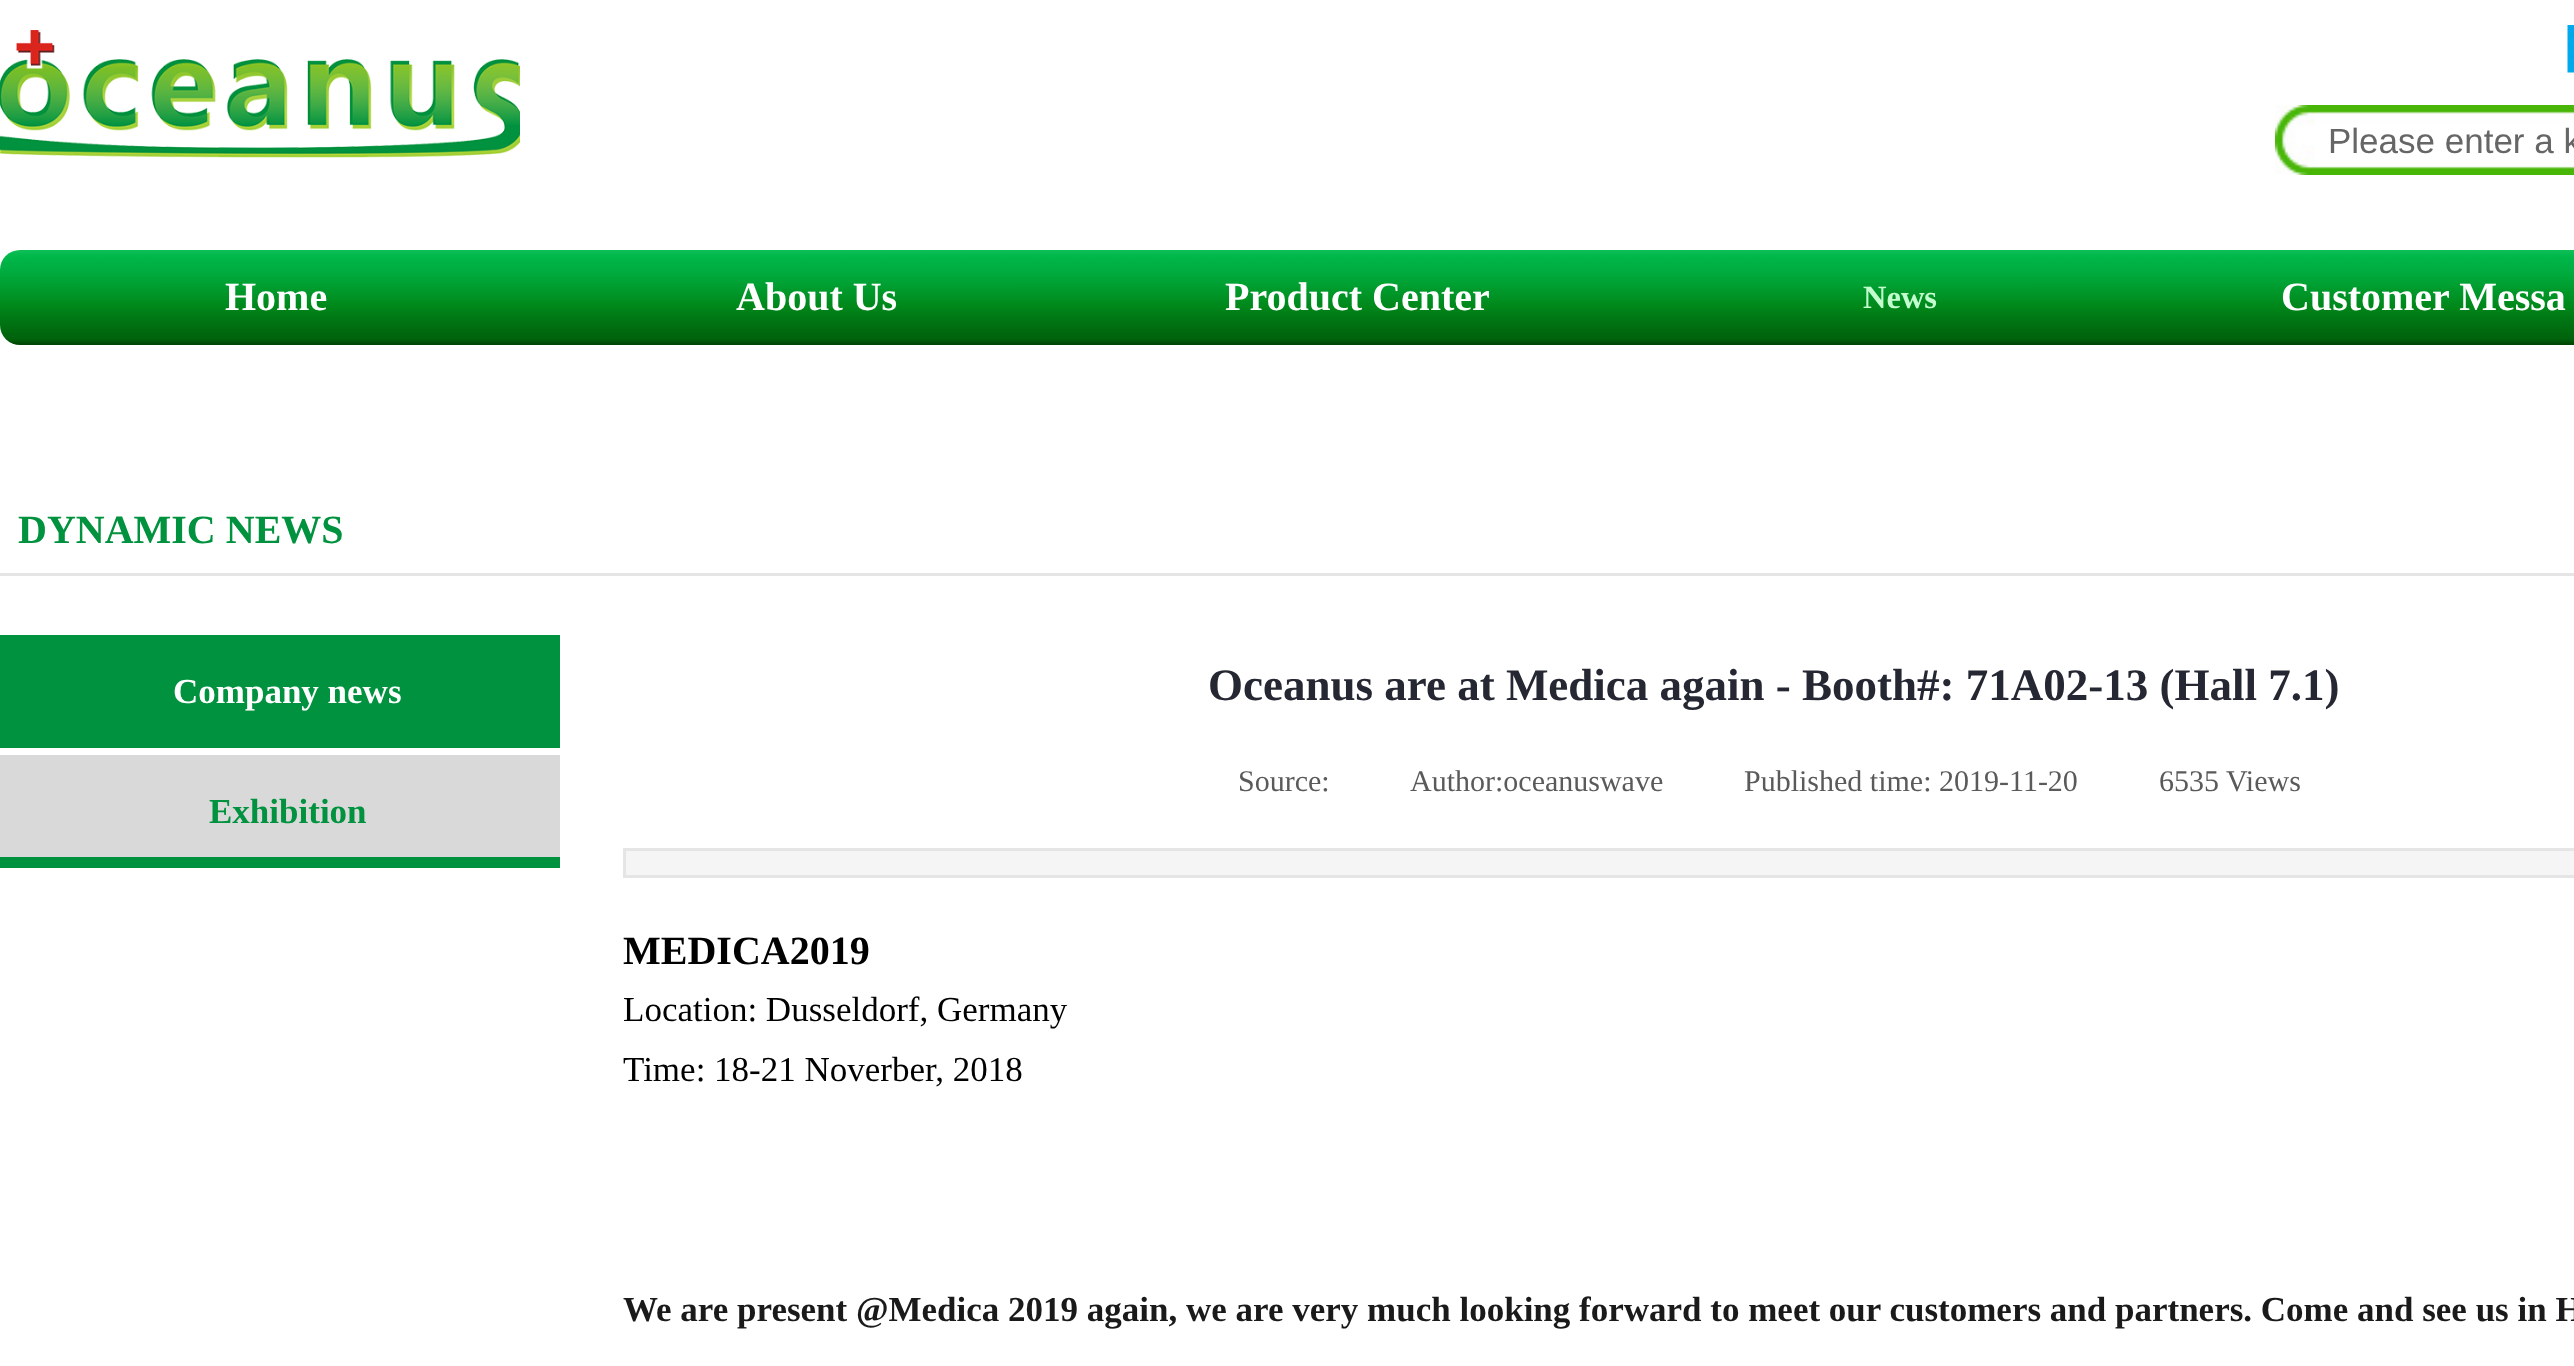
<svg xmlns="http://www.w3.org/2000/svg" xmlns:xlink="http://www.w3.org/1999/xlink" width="2574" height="1366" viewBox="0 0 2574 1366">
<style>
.cls-1{font:35px Liberation Sans;fill:#666666}
.cls-2{font:bold 40px Liberation Serif;fill:#ffffff}
.cls-3{font:bold 32.5px Liberation Serif;fill:#c3ffce}
.cls-4{font:bold 40px Liberation Serif;fill:#00923e}
.cls-5{font:bold 35px Liberation Serif;fill:#ffffff}
.cls-6{font:bold 35px Liberation Serif;fill:#00923e}
.cls-7{font:bold 45px Liberation Serif;fill:#252833}
.cls-8{font:30px Liberation Serif;fill:#5a5a5a}
.cls-9{font:bold 40px Liberation Serif;fill:#000000}
.cls-10{font:35px Liberation Serif;fill:#000000}
.cls-11{font:bold 35px Liberation Serif;fill:#1a1a1a}
</style>
<rect width="100%" height="100%" fill="#ffffff"/>
<image xlink:href="image0.png" x="0" y="30" width="520" height="128"/>
<image xlink:href="image1.png" x="2567" y="25" width="7" height="48"/>
<image xlink:href="image2.png" x="2275" y="105" width="299" height="70"/>
<rect fill="#ffffff" x="2315" y="120" width="1" height="27"/>
<image xlink:href="image3.png" x="0" y="250" width="2574" height="95"/>
<rect fill="#e5e5e5" x="0" y="573" width="2574" height="3"/>
<rect fill="#00923e" x="0" y="635" width="560" height="113"/>
<rect fill="#d9d9d9" x="0" y="755" width="560" height="102"/>
<rect fill="#00923e" x="0" y="857" width="560" height="11"/>
<rect fill="#f5f5f5" stroke="#e5e5e5" stroke-width="3" x="624.5" y="849.5" width="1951" height="27"/>
<text class="cls-1" x="2328" y="153">Please enter a k</text>
<text class="cls-2" x="225" y="310">Home</text>
<text class="cls-2" x="736" y="310">About Us</text>
<text class="cls-2" x="1225" y="310">Product Center</text>
<text class="cls-3" x="1863" y="308">News</text>
<text class="cls-2" x="2281" y="310">Customer Messa</text>
<text class="cls-4" x="18" y="543">DYNAMIC NEWS</text>
<text class="cls-5" x="173" y="703">Company news</text>
<text class="cls-6" x="209" y="823">Exhibition</text>
<text class="cls-7" x="1208" y="700">Oceanus are at Medica again - Booth#: 71A02-13 (Hall 7.1)</text>
<text class="cls-8" x="1238" y="791">Source:</text>
<text class="cls-8" x="1410" y="791">Author:oceanuswave</text>
<text class="cls-8" x="1744" y="791">Published time: 2019-11-20</text>
<text class="cls-8" x="2159" y="791">6535</text>
<text class="cls-8" x="2226" y="791">Views</text>
<text class="cls-9" x="623" y="964">MEDICA2019</text>
<text class="cls-10"><tspan x="623" y="1021">Location: Dusseldorf, Germany</tspan><tspan x="623" y="1081">Time: 18-21 Noverber, 2018</tspan></text>
<text class="cls-11" x="623" y="1321">We are present @Medica 2019 again, we are very much looking forward to meet our customers and partners. Come and see us in H</text>
</svg>
